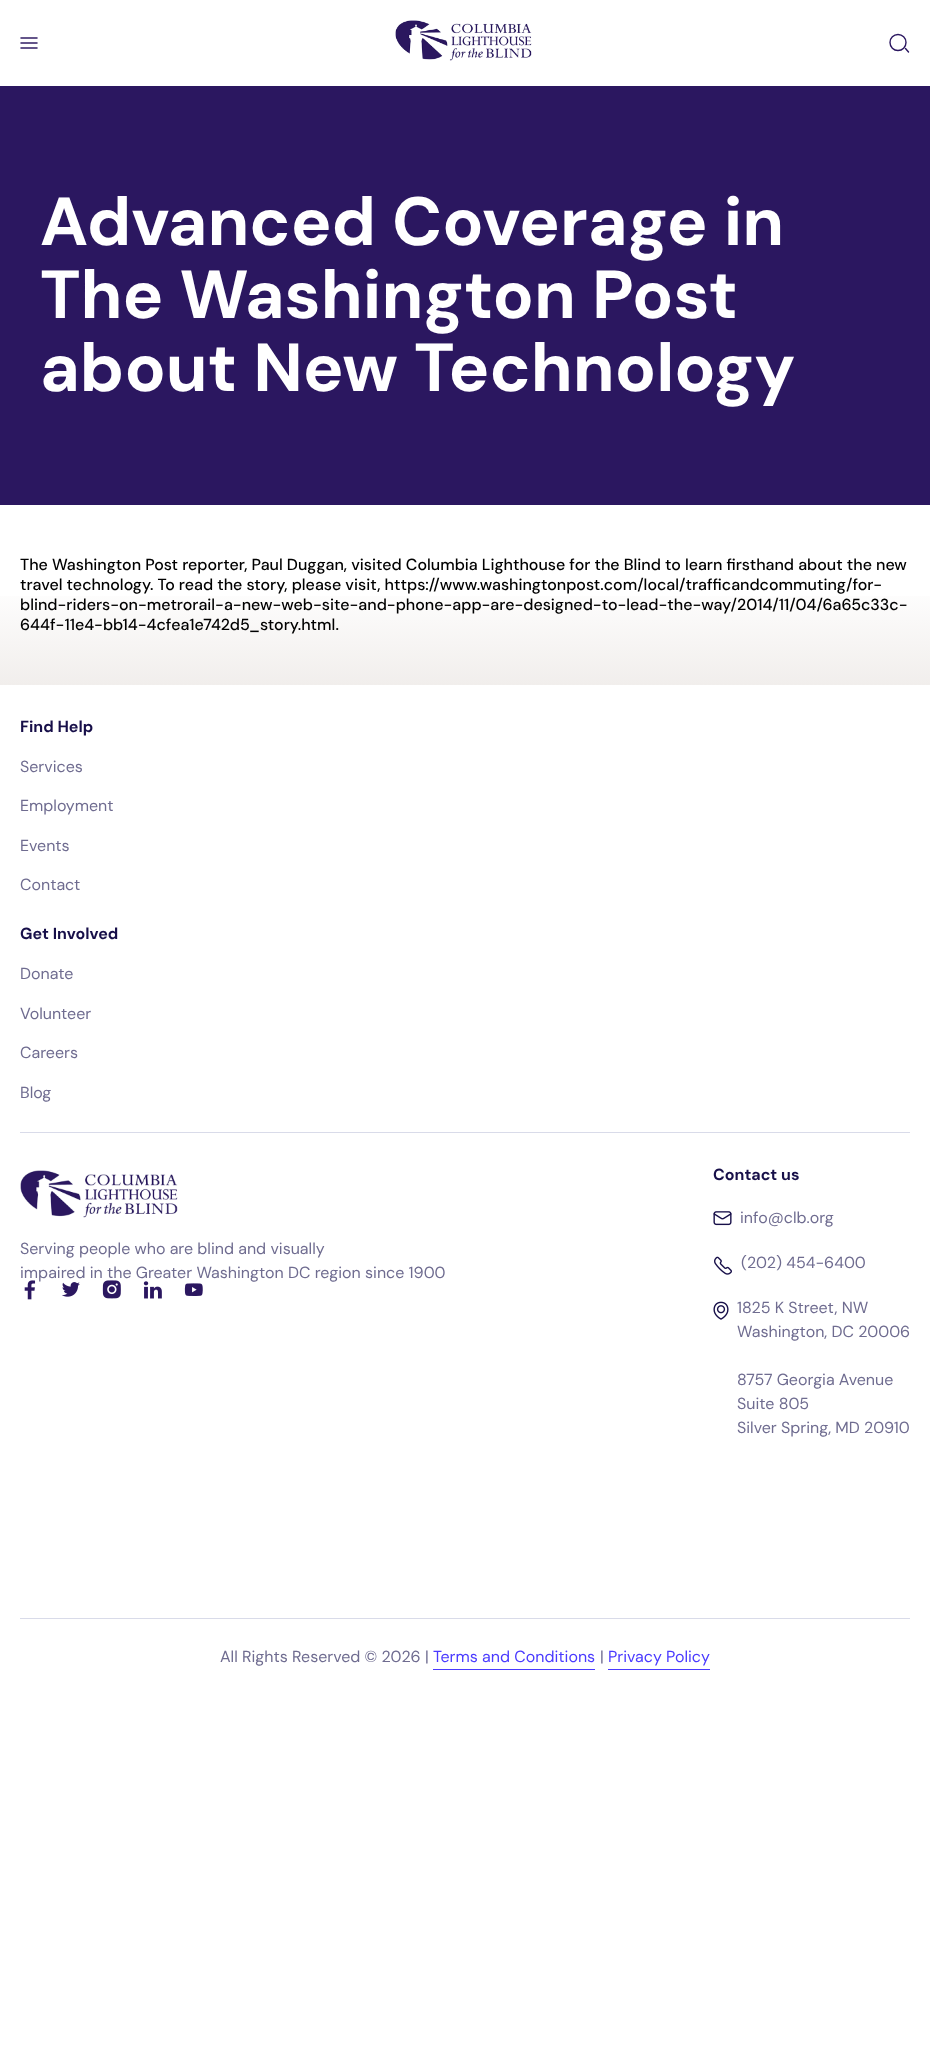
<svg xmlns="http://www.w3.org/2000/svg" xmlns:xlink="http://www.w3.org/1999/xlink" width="930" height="2053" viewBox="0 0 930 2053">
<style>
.cls-1{font:bold 68px DM Sans;fill:#ffffff}
.cls-2{font:500 16px DM Sans;fill:#000000}
.cls-3{font:bold 16px DM Sans;fill:#170f49}
.cls-4{font:16px DM Sans;fill:#6f6c90}
.cls-5{font:16px DM Sans;fill:#4a3aff}
</style>
<defs>
<linearGradient id="g1" gradientUnits="userSpaceOnUse" x1="465" y1="685" x2="465" y2="505"><stop offset="0" stop-color="#f1eeec"/><stop offset="0.57" stop-color="#ffffff"/></linearGradient>
</defs>
<rect width="100%" height="100%" fill="#ffffff"/>
<image xlink:href="image0.png" x="20" y="37" width="18" height="12"/>
<image xlink:href="image1.png" x="395" y="20" width="137" height="41"/>
<circle fill="none" stroke="#2b1760" stroke-width="1.4" cx="898" cy="42.5" r="8"/>
<path fill="none" stroke="#2b1760" stroke-width="1.4" stroke-linecap="round" d="M908.5 52L905.5 48.5"/>
<rect fill="#2b1760" x="0" y="86" width="930" height="419"/>
<rect fill="url(#g1)" x="0" y="596" width="930" height="89"/>
<rect fill="#d9dbe9" x="20" y="1618" width="890" height="1"/>
<rect fill="#d9dbe9" x="20" y="1132" width="890" height="1"/>
<image xlink:href="image2.png" x="20" y="1170" width="158" height="48"/>
<image xlink:href="image3.png" x="713" y="1211" width="19" height="15"/>
<image xlink:href="image4.png" x="714" y="1256" width="18" height="19"/>
<image xlink:href="image5.png" x="713" y="1301" width="16" height="19"/>
<image xlink:href="image7.png" x="62" y="1282" width="18" height="15"/>
<image xlink:href="image10.png" x="184" y="1283" width="19" height="13"/>
<rect fill="#4a3aff" x="433" y="1669" width="162" height="1"/>
<rect fill="#4a3aff" x="608" y="1669" width="102" height="1"/>
<text class="cls-1"><tspan x="40" y="245">Advanced Coverage in</tspan><tspan x="40" y="318">The Washington Post</tspan><tspan x="40" y="391">about New Technology</tspan></text>
<text class="cls-2"><tspan x="20" y="570">The Washington Post reporter, Paul Duggan, visited Columbia Lighthouse for the Blind to learn firsthand about the new</tspan><tspan x="20" y="590">travel technology. To read the story, please visit, https://www.washingtonpost.com/local/trafficandcommuting/for-</tspan><tspan x="20" y="610">blind-riders-on-metrorail-a-new-web-site-and-phone-app-are-designed-to-lead-the-way/2014/11/04/6a65c33c-</tspan><tspan x="20" y="630">644f-11e4-bb14-4cfea1e742d5_story.html.</tspan></text>
<text class="cls-3" x="20" y="732">Find Help</text>
<text class="cls-4" x="20" y="772">Services</text>
<text class="cls-4" x="20" y="811">Employment</text>
<text class="cls-4" x="20" y="851">Events</text>
<text class="cls-4" x="20" y="890">Contact</text>
<text class="cls-3" x="20" y="939">Get Involved</text>
<text class="cls-4" x="20" y="979">Donate</text>
<text class="cls-4" x="20" y="1019">Volunteer</text>
<text class="cls-4" x="20" y="1058">Careers</text>
<text class="cls-4" x="20" y="1098">Blog</text>
<text class="cls-4"><tspan x="20" y="1254">Serving people who are blind and visually</tspan><tspan x="20" y="1278">impaired in the Greater Washington DC region since 1900</tspan></text>
<text class="cls-3" x="713" y="1180">Contact us</text>
<text class="cls-4" x="740" y="1223">info@clb.org</text>
<text class="cls-4" x="741" y="1268">(202) 454-6400</text>
<text class="cls-4"><tspan x="737" y="1313">1825 K Street, NW</tspan><tspan x="737" y="1337">Washington, DC 20006</tspan></text>
<text class="cls-4"><tspan x="737" y="1385">8757 Georgia Avenue</tspan><tspan x="737" y="1409">Suite 805</tspan><tspan x="737" y="1433">Silver Spring, MD 20910</tspan></text>
<image xlink:href="image6.png" x="24" y="1280" width="12" height="20"/>
<image xlink:href="image8.png" x="102" y="1280" width="19" height="19"/>
<image xlink:href="image9.png" x="143" y="1281" width="19" height="18"/>
<text class="cls-4" x="220" y="1662">All Rights Reserved © 2026 |</text>
<text class="cls-5" x="433" y="1662">Terms and Conditions</text>
<text class="cls-4" x="600" y="1662">|</text>
<text class="cls-5" x="608" y="1662">Privacy Policy</text>
</svg>
